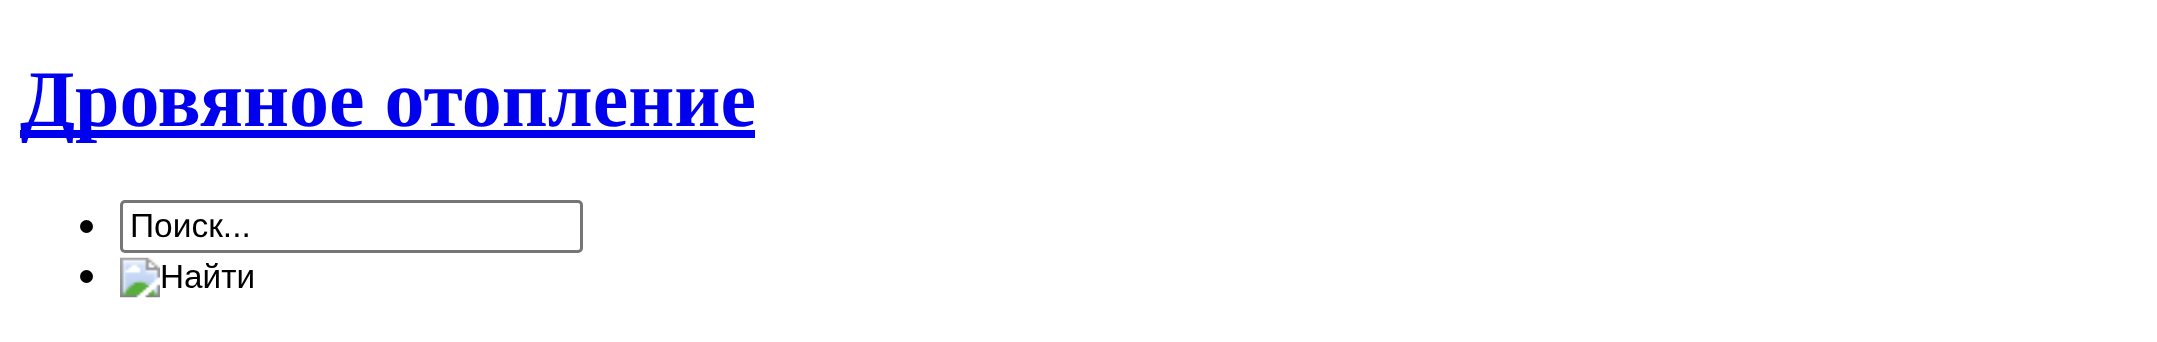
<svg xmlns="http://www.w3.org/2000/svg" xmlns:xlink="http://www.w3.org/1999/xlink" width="2157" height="342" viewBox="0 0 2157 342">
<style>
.cls-1{font:bold 80px Liberation Serif;fill:#0000ee}
.cls-2{font:33.5px Liberation Sans;fill:#000000}
</style>
<rect width="100%" height="100%" fill="#ffffff"/>
<rect fill="#0000ee" x="20" y="130" width="735" height="8"/>
<circle fill="#000000" cx="86.5" cy="226.5" r="6.5"/>
<rect fill="none" stroke="#767676" stroke-width="3" x="121.5" y="201.5" width="460" height="50" rx="3.5"/>
<circle fill="#000000" cx="86.5" cy="276.5" r="6.5"/>
<image xlink:href="image0.png" x="120" y="257" width="133" height="41"/>
<text class="cls-1" x="20" y="126">Дровяное отопление</text>
<text class="cls-2" x="130" y="237">Поиск...</text>
</svg>
